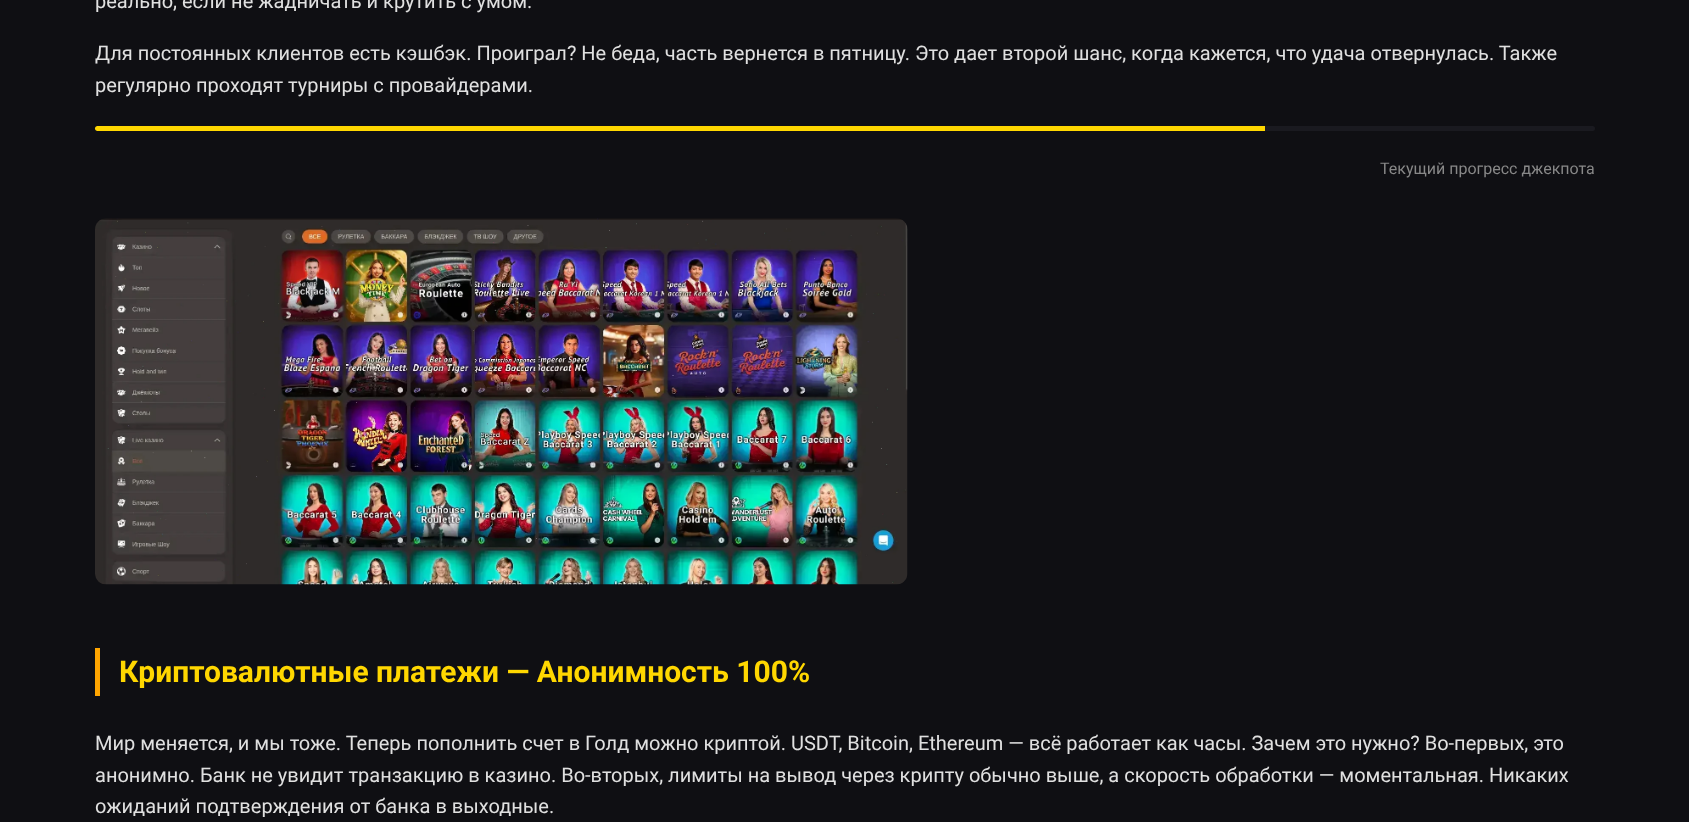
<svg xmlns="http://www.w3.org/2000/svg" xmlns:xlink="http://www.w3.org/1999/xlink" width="1689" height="822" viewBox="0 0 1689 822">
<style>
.cls-1{font:20px Roboto;fill:#e0e0e0}
.cls-2{font:16px Roboto;fill:#888888}
.cls-3{font:bold 30px Roboto;fill:#ffd700}
</style>
<rect width="100%" height="100%" fill="#0f0f13"/>
<rect fill="#1a1a20" x="95" y="126" width="1500" height="5" rx="2.5"/>
<path fill="#ffd700" d="M97.5 126H1265V131H97.5C96 131 95 130 95 128.5C95 127 96 126 97.5 126Z"/>
<image xlink:href="image0.png" x="95" y="218" width="813" height="367"/>
<rect fill="#ffa500" x="95" y="648" width="5" height="48"/>
<text class="cls-1" x="95" y="8">реально, если не жадничать и крутить с умом.</text>
<text class="cls-1"><tspan x="95" y="60">Для постоянных клиентов есть кэшбэк. Проиграл? Не беда, часть вернется в пятницу. Это дает второй шанс, когда кажется, что удача отвернулась. Также</tspan><tspan x="95" y="92">регулярно проходят турниры с провайдерами.</tspan></text>
<text class="cls-2" x="1380" y="174">Текущий прогресс джекпота</text>
<text class="cls-3" x="119" y="682">Криптовалютные платежи — Анонимность 100%</text>
<text class="cls-1"><tspan x="95" y="750">Мир меняется, и мы тоже. Теперь пополнить счет в Голд можно криптой. USDT, Bitcoin, Ethereum — всё работает как часы. Зачем это нужно? Во-первых, это</tspan><tspan x="95" y="782">анонимно. Банк не увидит транзакцию в казино. Во-вторых, лимиты на вывод через крипту обычно выше, а скорость обработки — моментальная. Никаких</tspan><tspan x="95" y="813">ожиданий подтверждения от банка в выходные.</tspan></text>
</svg>
